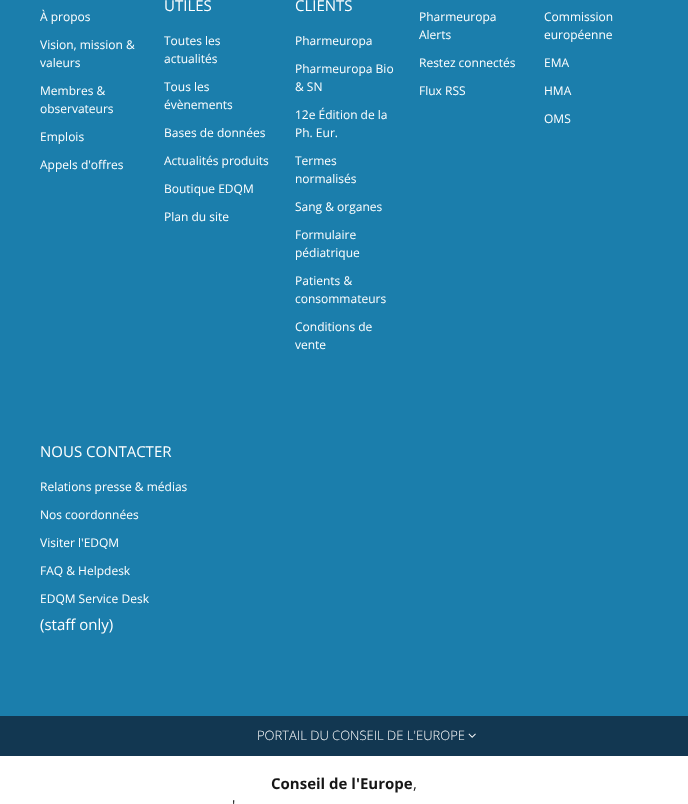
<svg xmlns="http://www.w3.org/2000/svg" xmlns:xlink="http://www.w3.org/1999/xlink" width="688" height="804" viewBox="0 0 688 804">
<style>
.cls-1{font:12px Open Sans;fill:#ffffff}
.cls-2{font:15px Open Sans;fill:#ffffff}
.cls-3{font:300 13px Open Sans;fill:#ffffff}
.cls-4{font:bold 15px Open Sans;fill:#161616}
.cls-5{font:15px Open Sans;fill:#161616}
</style>
<rect width="100%" height="100%" fill="#ffffff"/>
<rect fill="#1b7eac" x="0" y="0" width="688" height="716"/>
<rect fill="#123751" x="0" y="716" width="688" height="40"/>
<image xlink:href="image0.png" x="468" y="733" width="8" height="5"/>
<text class="cls-1" x="40" y="21">À propos</text>
<text class="cls-1"><tspan x="40" y="49">Vision, mission &amp;</tspan><tspan x="40" y="67">valeurs</tspan></text>
<text class="cls-1"><tspan x="40" y="95">Membres &amp;</tspan><tspan x="40" y="113">observateurs</tspan></text>
<text class="cls-1" x="40" y="141">Emplois</text>
<text class="cls-1" x="40" y="169">Appels d'offres</text>
<text class="cls-2" x="164" y="11">UTILES</text>
<text class="cls-1"><tspan x="164" y="45">Toutes les</tspan><tspan x="164" y="63">actualités</tspan></text>
<text class="cls-1"><tspan x="164" y="91">Tous les</tspan><tspan x="164" y="109">évènements</tspan></text>
<text class="cls-1" x="164" y="137">Bases de données</text>
<text class="cls-1" x="164" y="165">Actualités produits</text>
<text class="cls-1" x="164" y="193">Boutique EDQM</text>
<text class="cls-1" x="164" y="221">Plan du site</text>
<text class="cls-2" x="295" y="11">CLIENTS</text>
<text class="cls-1" x="295" y="45">Pharmeuropa</text>
<text class="cls-1"><tspan x="295" y="73">Pharmeuropa Bio</tspan><tspan x="295" y="91">&amp; SN</tspan></text>
<text class="cls-1"><tspan x="295" y="119">12e Édition de la</tspan><tspan x="295" y="137">Ph. Eur.</tspan></text>
<text class="cls-1"><tspan x="295" y="165">Termes</tspan><tspan x="295" y="183">normalisés</tspan></text>
<text class="cls-1" x="295" y="211">Sang &amp; organes</text>
<text class="cls-1"><tspan x="295" y="239">Formulaire</tspan><tspan x="295" y="257">pédiatrique</tspan></text>
<text class="cls-1"><tspan x="295" y="285">Patients &amp;</tspan><tspan x="295" y="303">consommateurs</tspan></text>
<text class="cls-1"><tspan x="295" y="331">Conditions de</tspan><tspan x="295" y="349">vente</tspan></text>
<text class="cls-1"><tspan x="419" y="21">Pharmeuropa</tspan><tspan x="419" y="39">Alerts</tspan></text>
<text class="cls-1" x="419" y="67">Restez connectés</text>
<text class="cls-1" x="419" y="95">Flux RSS</text>
<text class="cls-1"><tspan x="544" y="21">Commission</tspan><tspan x="544" y="39">européenne</tspan></text>
<text class="cls-1" x="544" y="67">EMA</text>
<text class="cls-1" x="544" y="95">HMA</text>
<text class="cls-1" x="544" y="123">OMS</text>
<text class="cls-2" x="40" y="457">NOUS CONTACTER</text>
<text class="cls-1" x="40" y="491">Relations presse &amp; médias</text>
<text class="cls-1" x="40" y="519">Nos coordonnées</text>
<text class="cls-1" x="40" y="547">Visiter l'EDQM</text>
<text class="cls-1" x="40" y="575">FAQ &amp; Helpdesk</text>
<text class="cls-1" x="40" y="603">EDQM Service Desk</text>
<text class="cls-2" x="40" y="630">(staff only)</text>
<text class="cls-3" x="257" y="740">PORTAIL DU CONSEIL DE L'EUROPE</text>
<text class="cls-4" x="271" y="789">Conseil de l'Europe</text>
<text class="cls-5" x="413" y="789">,</text>
<text class="cls-5" x="232" y="811">'</text>
</svg>
